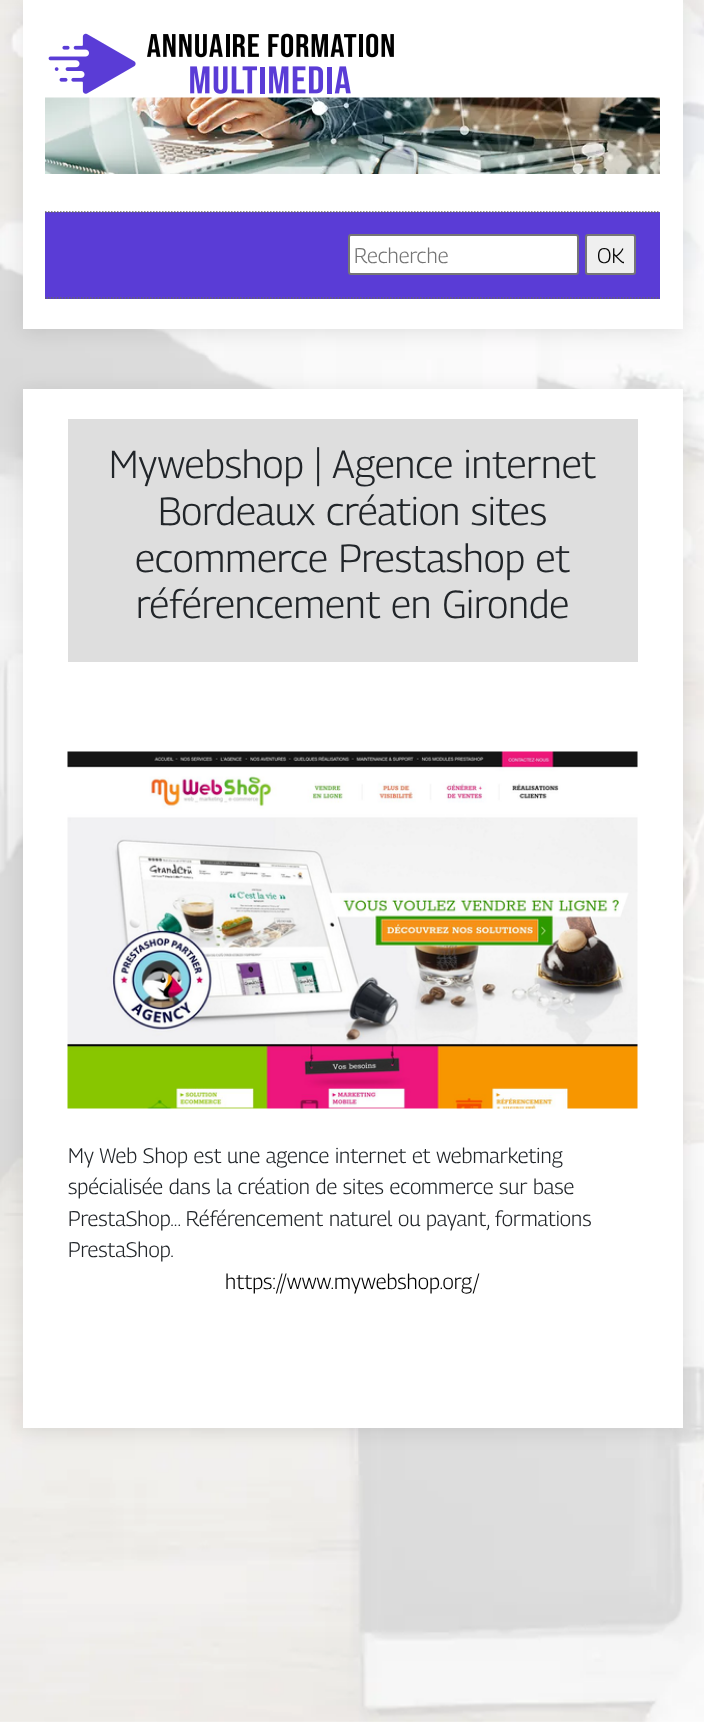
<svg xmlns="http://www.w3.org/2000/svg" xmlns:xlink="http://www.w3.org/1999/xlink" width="704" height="1722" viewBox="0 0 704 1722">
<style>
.cls-1{font:100 21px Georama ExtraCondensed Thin;fill:#757575}
.cls-2{font:100 21px Georama ExtraCondensed Thin;fill:#000000}
.cls-3{font:100 39px Georama ExtraCondensed Thin;fill:#212529}
.cls-4{font:100 21px Georama ExtraCondensed Thin;fill:#212529}
</style>
<rect width="100%" height="100%" fill="#ffffff"/>
<image xlink:href="image0.png" x="0" y="0" width="704" height="1722"/>
<rect fill="#000000" fill-opacity="0.1" filter="blur(10px)" x="23" y="3" width="660" height="329"/>
<rect fill="#ffffff" x="23" y="0" width="660" height="329"/>
<image xlink:href="image1.png" x="48" y="33" width="346" height="61"/>
<image xlink:href="image2.png" x="45" y="97" width="615" height="77"/>
<rect fill="#5a3cd6" x="45" y="212" width="615" height="87"/>
<path fill="none" stroke="#666666" stroke-width="1.5" stroke-dasharray="1.5 1.5" d="M45 212H660"/>
<path fill="none" stroke="#666666" stroke-width="1.5" stroke-dasharray="1.5 1.5" d="M45 298H660"/>
<rect fill="#ffffff" stroke="#767676" stroke-width="2" x="349" y="235" width="229" height="39" rx="2"/>
<rect fill="#efefef" stroke="#767676" stroke-width="2" x="586" y="235" width="49" height="39" rx="2"/>
<rect fill="#000000" fill-opacity="0.1" filter="blur(10px)" x="23" y="392" width="660" height="1039"/>
<rect fill="#ffffff" x="23" y="389" width="660" height="1039"/>
<rect fill="#dedede" x="68" y="419" width="570" height="243"/>
<image xlink:href="image3.png" x="67" y="751" width="571" height="358"/>
<text class="cls-1" x="354" y="263">Recherche</text>
<text class="cls-2" x="597" y="263">OK</text>
<text class="cls-3" x="109" y="478">Mywebshop | Agence internet</text>
<text class="cls-3" x="158" y="525">Bordeaux création sites</text>
<text class="cls-3" x="135" y="572">ecommerce Prestashop et</text>
<text class="cls-3" x="136" y="618">référencement en Gironde</text>
<text class="cls-4"><tspan x="68" y="1163">My Web Shop est une agence internet et webmarketing</tspan><tspan x="68" y="1194">spécialisée dans la création de sites ecommerce sur base</tspan><tspan x="68" y="1226">PrestaShop... Référencement naturel ou payant, formations</tspan><tspan x="68" y="1257">PrestaShop.</tspan></text>
<text class="cls-2" x="225" y="1289">https://www.mywebshop.org/</text>
</svg>
